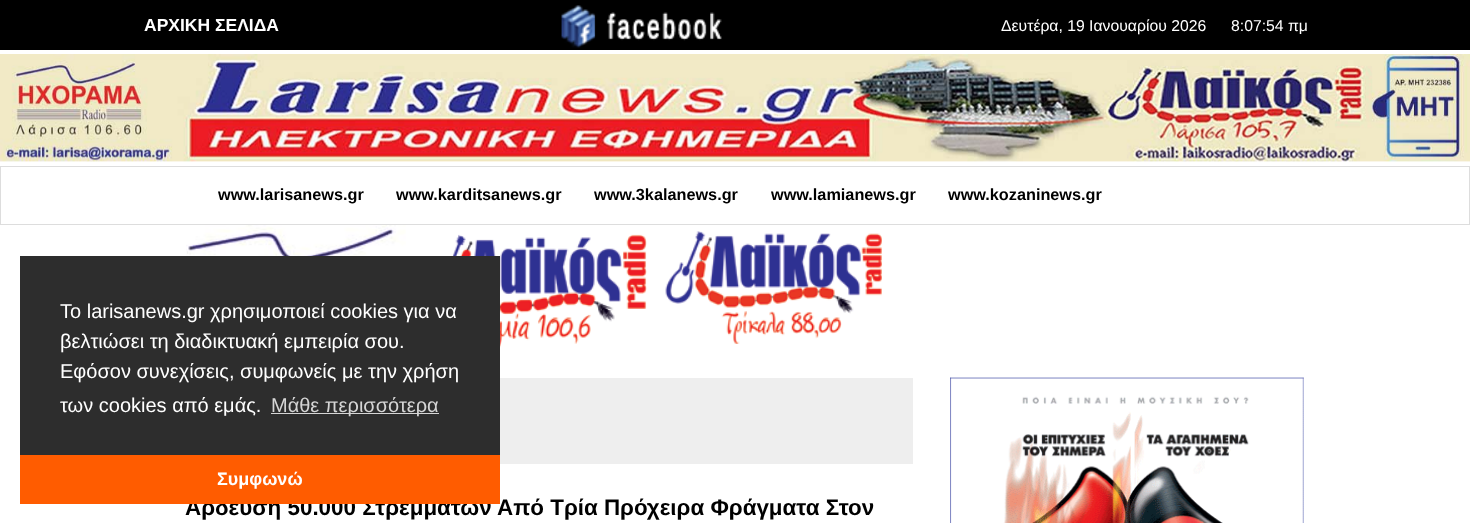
<svg xmlns="http://www.w3.org/2000/svg" xmlns:xlink="http://www.w3.org/1999/xlink" width="1470" height="523" viewBox="0 0 1470 523">
<style>
.cls-1{font:bold 17.5px Liberation Sans;fill:#ffffff}
.cls-2{font:15.75px Liberation Sans;fill:#ffffff}
.cls-3{font:bold 16.25px Liberation Sans;fill:#000000}
.cls-4{font:bold 22.4px Liberation Sans;fill:#000000}
.cls-5{font:20px Liberation Sans;fill:#ffffff}
.cls-6{font:20px Liberation Sans;fill:#d5d5d5}
.cls-7{font:bold 18px Liberation Sans;fill:#ffffff}
</style>
<rect width="100%" height="100%" fill="#ffffff"/>
<rect fill="#000000" x="0" y="0" width="1470" height="50"/>
<image xlink:href="image0.png" x="561" y="5" width="161" height="43"/>
<image xlink:href="image1.png" x="0" y="54" width="1470" height="108"/>
<rect fill="none" stroke="#dddddd" x="0.5" y="166.5" width="1469" height="58"/>
<image xlink:href="image2.png" x="186" y="225" width="220" height="31"/>
<image xlink:href="image3.png" x="425" y="234" width="222" height="115"/>
<image xlink:href="image4.png" x="665" y="231" width="217" height="113"/>
<rect fill="#eeeeee" x="500" y="378" width="413" height="86"/>
<image xlink:href="image5.png" x="950" y="377" width="354" height="146"/>
<rect fill="#2d2d2d" x="20" y="256" width="480" height="199"/>
<rect fill="#d5d5d5" x="271" y="413" width="168" height="1"/>
<text class="cls-1" x="144" y="31">ΑΡΧΙΚΗ ΣΕΛΙΔΑ</text>
<text class="cls-2" x="1001" y="31">Δευτέρα, 19 Ιανουαρίου 2026</text>
<text class="cls-2" x="1231" y="31">8:07:54 πμ</text>
<text class="cls-3" x="218" y="200">www.larisanews.gr</text>
<text class="cls-3" x="396" y="200">www.karditsanews.gr</text>
<text class="cls-3" x="594" y="200">www.3kalanews.gr</text>
<text class="cls-3" x="771" y="200">www.lamianews.gr</text>
<text class="cls-3" x="948" y="200">www.kozaninews.gr</text>
<text class="cls-4" x="185" y="515">Άρδευση 50.000 Στρεμμάτων Από Τρία Πρόχειρα Φράγματα Στον</text>
<text class="cls-5"><tspan x="60" y="318">Το larisanews.gr χρησιμοποιεί cookies για να</tspan><tspan x="60" y="348">βελτιώσει τη διαδικτυακή εμπειρία σου.</tspan><tspan x="60" y="378">Εφόσον συνεχίσεις, συμφωνείς με την χρήση</tspan><tspan x="60" y="412">των cookies από εμάς.</tspan></text>
<text class="cls-6" x="271" y="412">Μάθε περισσότερα</text>
<rect fill="#ff5c00" x="20" y="455" width="480" height="49"/>
<text class="cls-7" x="217" y="485">Συμφωνώ</text>
</svg>
